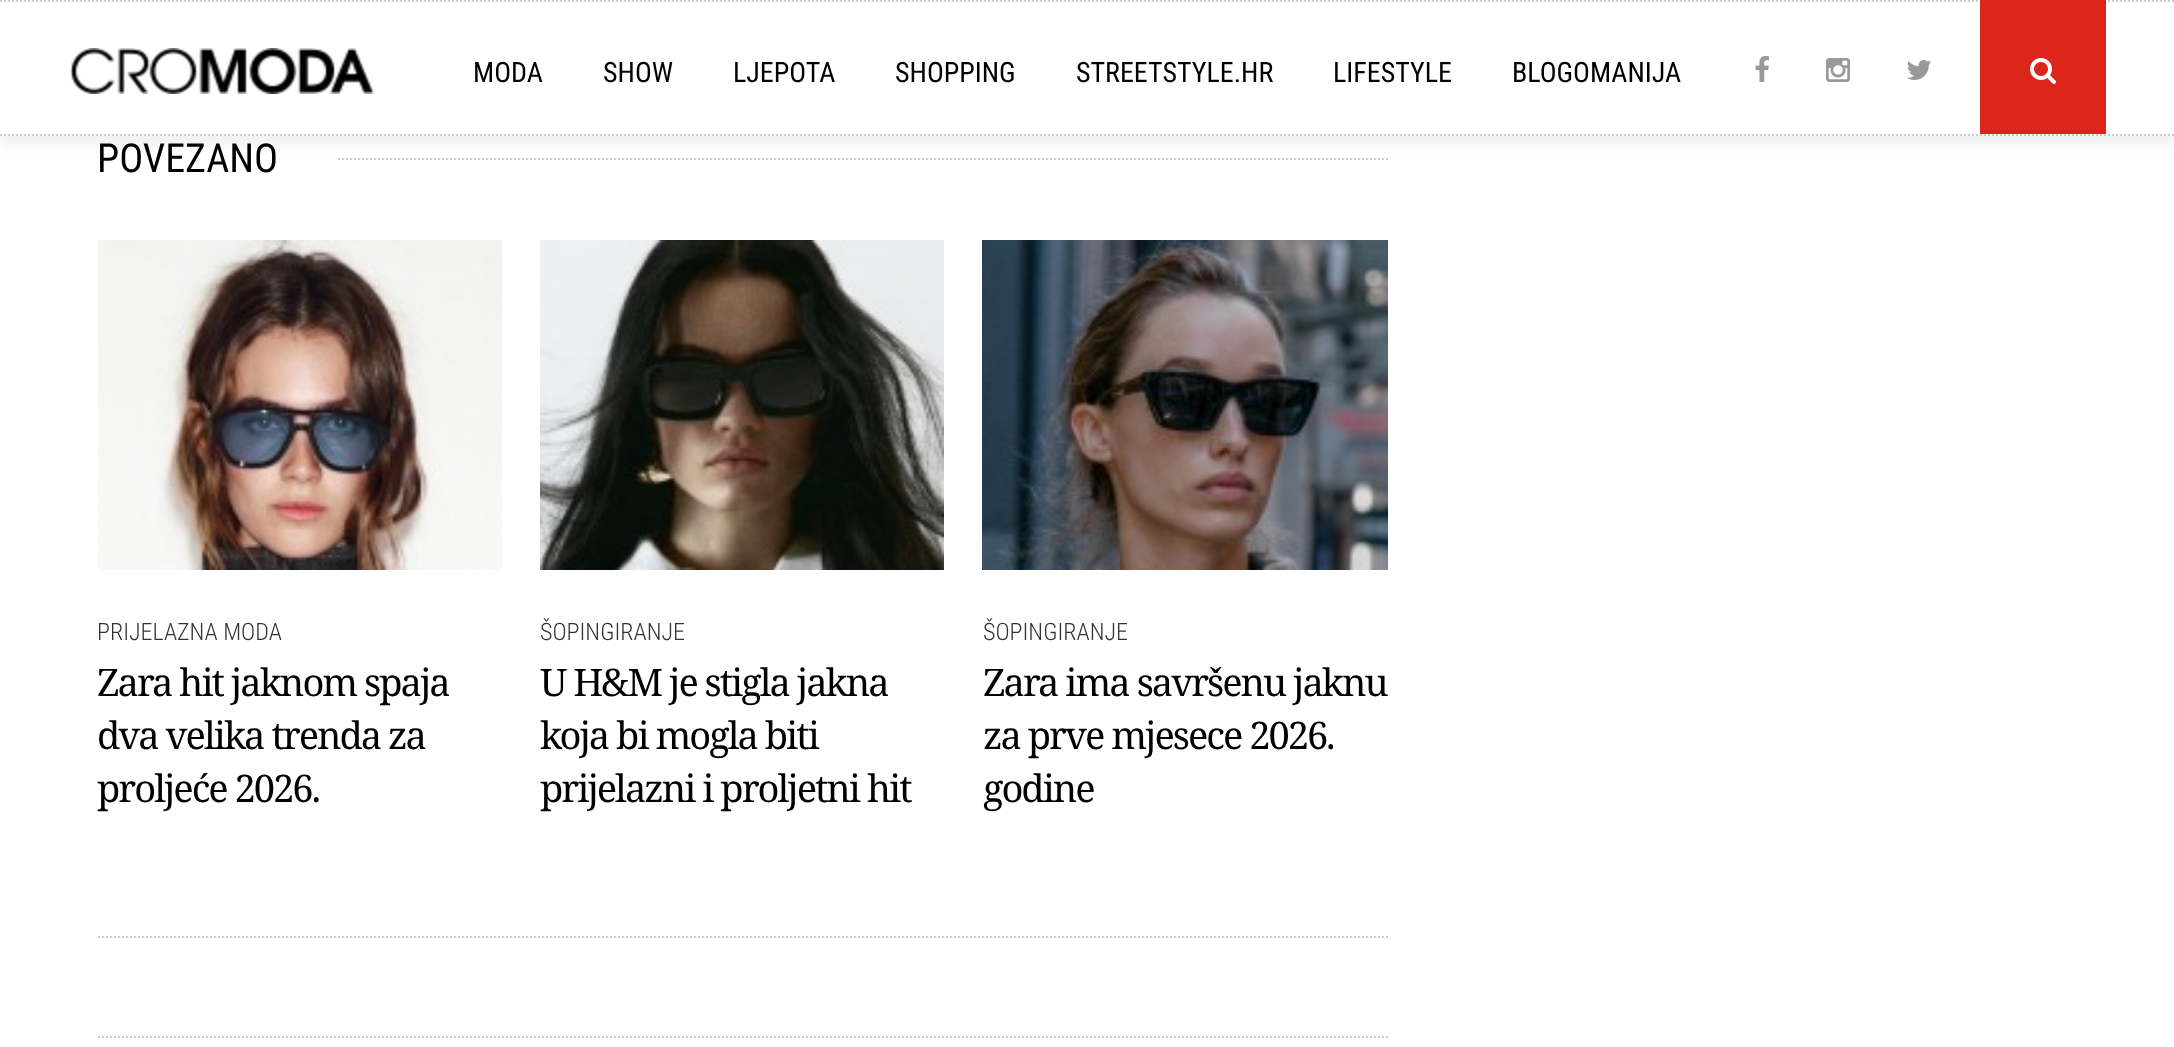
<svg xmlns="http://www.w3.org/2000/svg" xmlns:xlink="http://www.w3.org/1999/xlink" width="2174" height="1047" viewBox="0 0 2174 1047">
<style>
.cls-1{font:28px Roboto Condensed;fill:#000000}
.cls-2{font:40px Roboto Condensed;fill:#000000}
.cls-3{font:300 24px Roboto Condensed;fill:#333333}
.cls-4{font:38px Noto Serif;letter-spacing:-2px;fill:#000000}
</style>
<rect width="100%" height="100%" fill="#ffffff"/>
<path fill="none" stroke="#cccccc" stroke-width="2" stroke-dasharray="2 2" d="M98 159H1388"/>
<rect fill="#ffffff" x="98" y="158" width="238" height="2"/>
<rect fill="#000000" fill-opacity="0.05" filter="blur(5px)" x="0" y="10" width="2174" height="136"/>
<rect fill="#ffffff" x="0" y="6" width="2174" height="130"/>
<path fill="none" stroke="#cccccc" stroke-width="2" stroke-dasharray="2 2" d="M0 1H2174"/>
<path fill="none" stroke="#cccccc" stroke-width="2" stroke-dasharray="2 2" d="M0 135H2174"/>
<image xlink:href="image0.png" x="69" y="48" width="305" height="46"/>
<image xlink:href="image1.png" x="1755" y="56" width="14" height="26"/>
<image xlink:href="image2.png" x="1826" y="58" width="24" height="24"/>
<image xlink:href="image3.png" x="1907" y="60" width="25" height="20"/>
<rect fill="#dc261b" x="1980" y="0" width="126" height="134"/>
<image xlink:href="image4.png" x="2030" y="58" width="26" height="26"/>
<image xlink:href="image5.png" x="98" y="240" width="404" height="330"/>
<image xlink:href="image6.png" x="540" y="240" width="404" height="330"/>
<image xlink:href="image7.png" x="982" y="240" width="406" height="330"/>
<path fill="none" stroke="#cccccc" stroke-width="2" stroke-dasharray="2 2" d="M98 937H1388"/>
<path fill="none" stroke="#cccccc" stroke-width="2" stroke-dasharray="2 2" d="M98 1037H1388"/>
<text class="cls-1" x="473" y="82">MODA</text>
<text class="cls-1" x="603" y="82">SHOW</text>
<text class="cls-1" x="733" y="82">LJEPOTA</text>
<text class="cls-1" x="895" y="82">SHOPPING</text>
<text class="cls-1" x="1076" y="82">STREETSTYLE.HR</text>
<text class="cls-1" x="1333" y="82">LIFESTYLE</text>
<text class="cls-1" x="1512" y="82">BLOGOMANIJA</text>
<text class="cls-2" x="97" y="172">POVEZANO</text>
<text class="cls-3" x="97" y="640">PRIJELAZNA MODA</text>
<text class="cls-4"><tspan x="97" y="696">Zara hit jaknom spaja</tspan><tspan x="97" y="749">dva velika trenda za</tspan><tspan x="97" y="802">proljeće 2026.</tspan></text>
<text class="cls-3" x="540" y="640">ŠOPINGIRANJE</text>
<text class="cls-4"><tspan x="540" y="696">U H&amp;M je stigla jakna</tspan><tspan x="540" y="749">koja bi mogla biti</tspan><tspan x="540" y="802">prijelazni i proljetni hit</tspan></text>
<text class="cls-3" x="983" y="640">ŠOPINGIRANJE</text>
<text class="cls-4"><tspan x="983" y="696">Zara ima savršenu jaknu</tspan><tspan x="983" y="749">za prve mjesece 2026.</tspan><tspan x="983" y="802">godine</tspan></text>
</svg>
